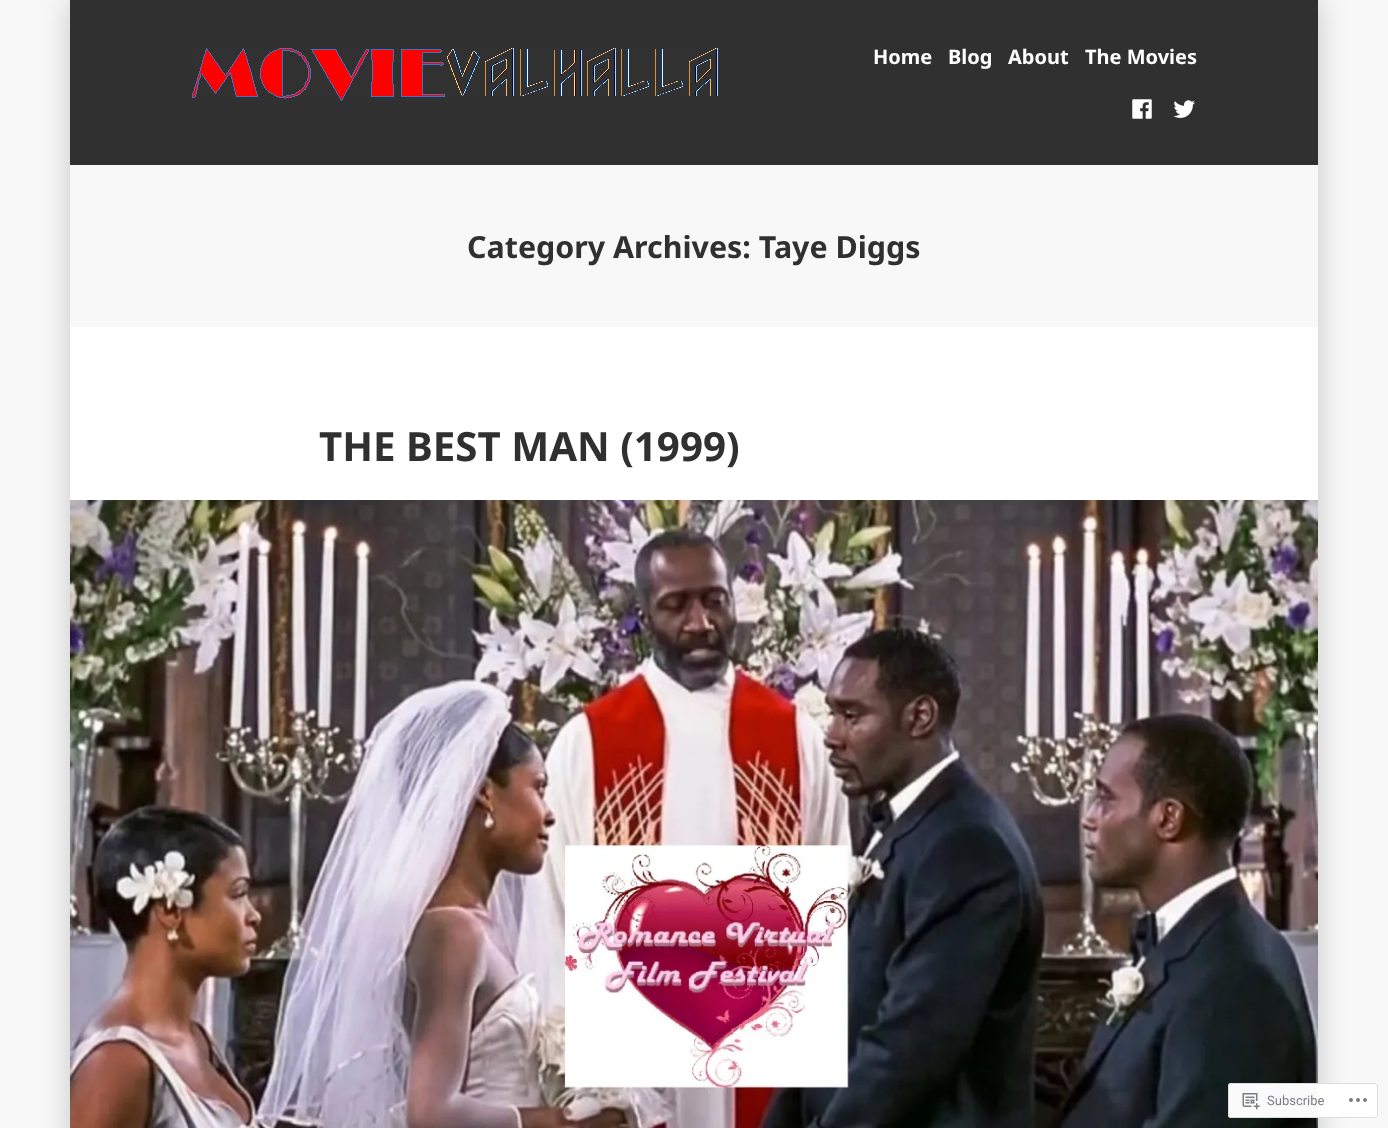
<svg xmlns="http://www.w3.org/2000/svg" xmlns:xlink="http://www.w3.org/1999/xlink" width="1388" height="1128" viewBox="0 0 1388 1128">
<style>
.cls-1{font:bold 20px Noto Sans;fill:#ffffff}
.cls-2{font:bold 30.4px Noto Sans;fill:#303030}
.cls-3{font:bold 40.25px Noto Sans;fill:#303030}
.cls-4{font:13px Roboto;fill:#7b7f84}
</style>
<rect width="100%" height="100%" fill="#f8f8f8"/>
<rect fill="#000000" fill-opacity="0.2" filter="blur(15px)" x="70" y="0" width="1248" height="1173"/>
<rect fill="#ffffff" x="70" y="327" width="1248" height="173"/>
<rect fill="#303030" x="70" y="0" width="1248" height="165"/>
<image xlink:href="image0.png" x="192" y="48" width="526" height="53"/>
<image xlink:href="image1.png" x="1132" y="99" width="20" height="20"/>
<image xlink:href="image2.png" x="1173" y="100" width="22" height="18"/>
<rect fill="#f8f8f8" x="70" y="165" width="1248" height="162"/>
<image xlink:href="image3.png" x="70" y="500" width="1248" height="628"/>
<rect fill="#ffffff" fill-opacity="0.98" x="1228" y="1083" width="150" height="35" rx="3"/>
<rect fill="none" stroke="#dcdcde" stroke-opacity="0.98" x="1228.5" y="1083.5" width="149" height="34" rx="2.5"/>
<image xlink:href="image4.png" x="1242" y="1093" width="18" height="17"/>
<image xlink:href="image5.png" x="1349" y="1098" width="18" height="4"/>
<text class="cls-1" x="873" y="64">Home</text>
<text class="cls-1" x="948" y="64">Blog</text>
<text class="cls-1" x="1008" y="64">About</text>
<text class="cls-1" x="1085" y="64">The Movies</text>
<text class="cls-2" x="467" y="258">Category Archives: Taye Diggs</text>
<text class="cls-3" x="319" y="461">THE BEST MAN (1999)</text>
<text class="cls-4" x="1267" y="1105">Subscribe</text>
</svg>
